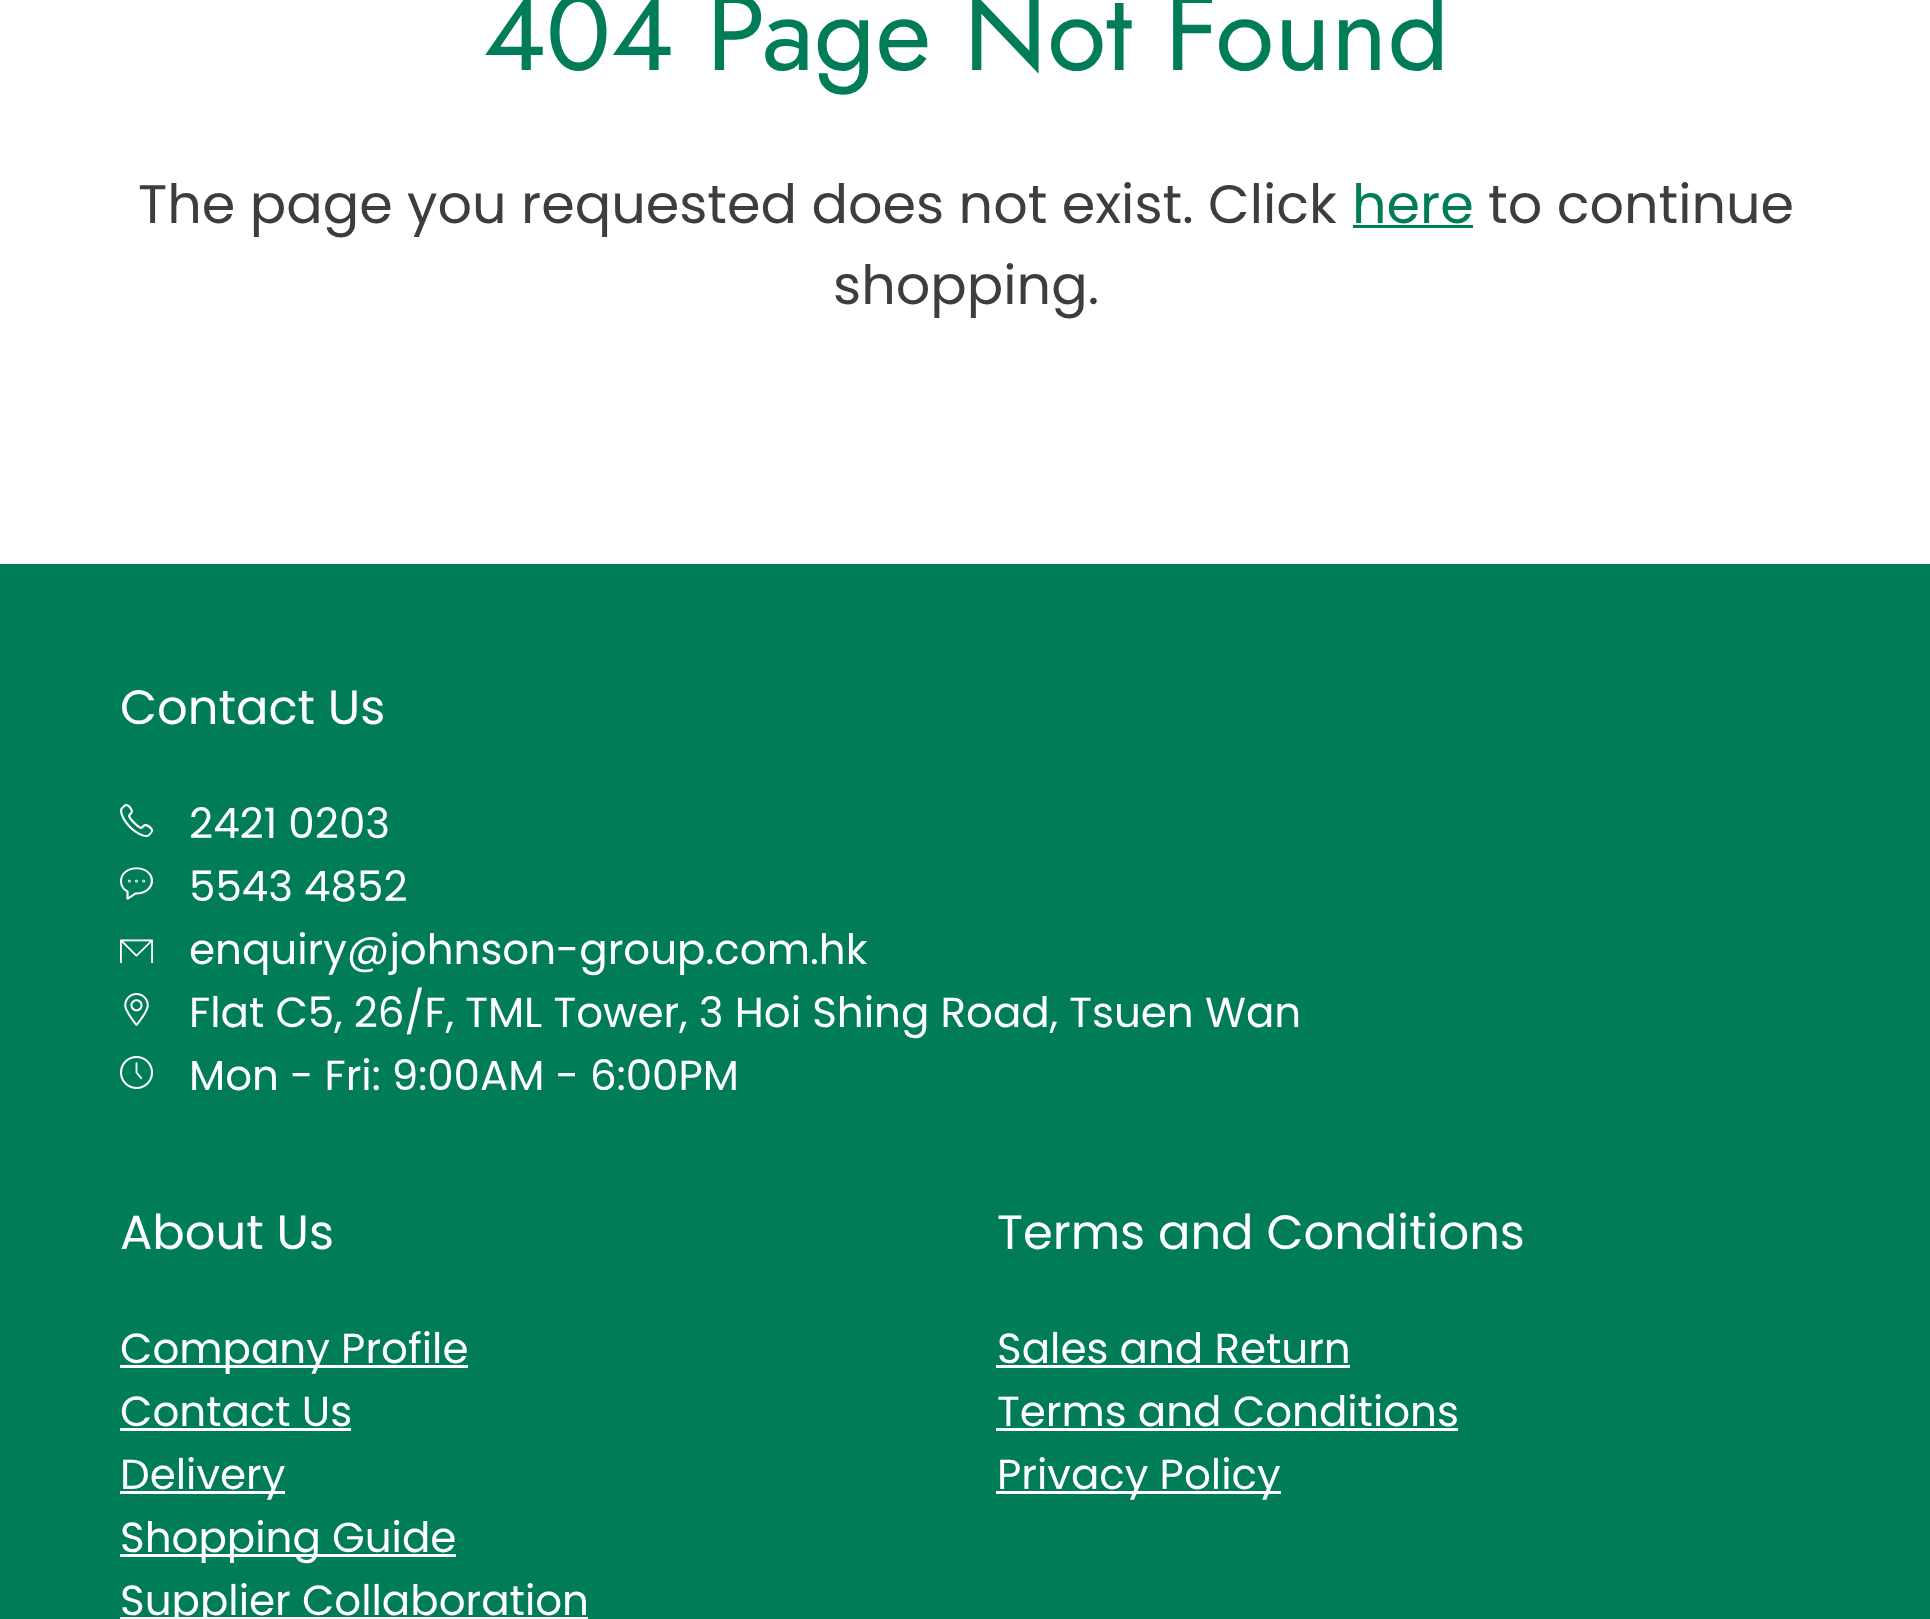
<svg xmlns="http://www.w3.org/2000/svg" xmlns:xlink="http://www.w3.org/1999/xlink" width="1930" height="1619" viewBox="0 0 1930 1619">
<style>
.cls-1{font:108px Jost;fill:#007d58}
.cls-2{font:54px Poppins;fill:#3d3d3d}
.cls-3{font:54px Poppins;fill:#007d58}
.cls-4{font:48px Poppins;fill:#ffffff}
.cls-5{font:42px Poppins;fill:#ffffff}
</style>
<rect width="100%" height="100%" fill="#ffffff"/>
<rect fill="#007d58" x="1353" y="225" width="120" height="3"/>
<rect fill="#007d58" x="0" y="564" width="1930" height="1055"/>
<image xlink:href="image0.png" x="120" y="804" width="33" height="33"/>
<image xlink:href="image1.png" x="120" y="867" width="33" height="33"/>
<image xlink:href="image2.png" x="120" y="939" width="33" height="24"/>
<image xlink:href="image3.png" x="124" y="993" width="25" height="33"/>
<image xlink:href="image4.png" x="120" y="1056" width="33" height="33"/>
<rect fill="#ffffff" x="120" y="1365" width="348" height="3"/>
<rect fill="#ffffff" x="120" y="1428" width="231" height="3"/>
<rect fill="#ffffff" x="120" y="1491" width="165" height="3"/>
<rect fill="#ffffff" x="120" y="1554" width="336" height="3"/>
<rect fill="#ffffff" x="120" y="1617" width="468" height="2"/>
<rect fill="#ffffff" x="996" y="1365" width="354" height="3"/>
<rect fill="#ffffff" x="996" y="1428" width="462" height="3"/>
<rect fill="#ffffff" x="996" y="1491" width="285" height="3"/>
<text class="cls-1" x="483" y="70">404 Page Not Found</text>
<text class="cls-2" x="138" y="223">The page you requested does not exist. Click</text>
<text class="cls-3" x="1352" y="223">here</text>
<text class="cls-2" x="1488" y="223">to continue</text>
<text class="cls-2" x="833" y="304">shopping.</text>
<text class="cls-4" x="120" y="724">Contact Us</text>
<text class="cls-5"><tspan x="189" y="838">2421 0203</tspan><tspan x="189" y="901">5543 4852</tspan><tspan x="189" y="964">enquiry@johnson-group.com.hk</tspan><tspan x="189" y="1027">Flat C5, 26/F, TML Tower, 3 Hoi Shing Road, Tsuen Wan</tspan><tspan x="189" y="1090">Mon - Fri: 9:00AM - 6:00PM</tspan></text>
<text class="cls-4" x="120" y="1249">About Us</text>
<text class="cls-5"><tspan x="120" y="1363">Company Profile</tspan><tspan x="120" y="1426">Contact Us</tspan><tspan x="120" y="1489">Delivery</tspan><tspan x="120" y="1552">Shopping Guide</tspan><tspan x="120" y="1615">Supplier Collaboration</tspan></text>
<text class="cls-4" x="997" y="1249">Terms and Conditions</text>
<text class="cls-5"><tspan x="997" y="1363">Sales and Return</tspan><tspan x="997" y="1426">Terms and Conditions</tspan><tspan x="997" y="1489">Privacy Policy</tspan></text>
</svg>
